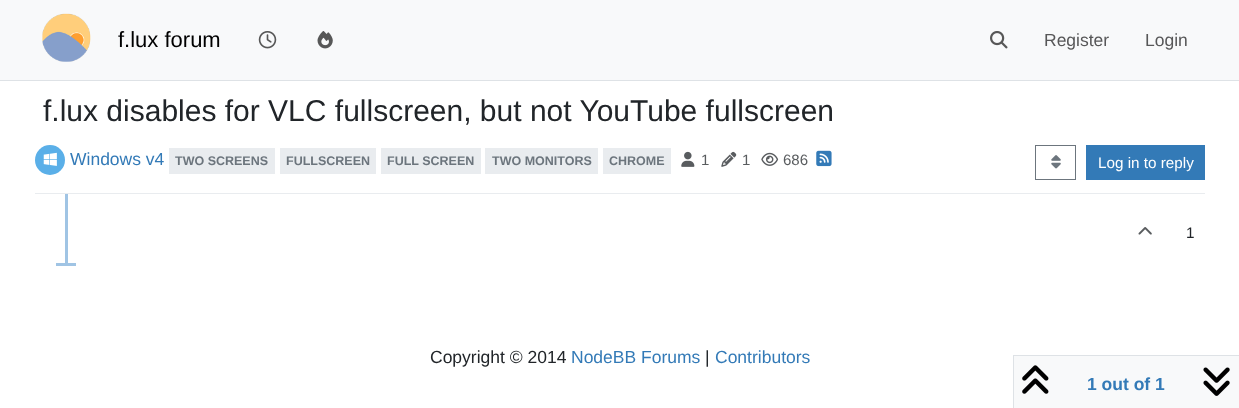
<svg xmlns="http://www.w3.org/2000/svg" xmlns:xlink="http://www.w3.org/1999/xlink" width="1239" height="408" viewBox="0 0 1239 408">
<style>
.cls-1{font:22px Liberation Sans;fill:#000000}
.cls-2{font:17.5px Liberation Sans;fill:#575758}
.cls-3{font:30px Liberation Sans;fill:#212529}
.cls-4{font:17.5px Liberation Sans;fill:#337ab7}
.cls-5{font:bold 12.5px Liberation Sans;fill:#6c757d}
.cls-6{font:15px Liberation Sans;fill:#595c5f}
.cls-7{font:15.25px Liberation Sans;fill:#ffffff}
.cls-8{font:15.25px Liberation Sans;fill:#212529}
.cls-9{font:bold 17.5px Liberation Sans;fill:#337ab7}
.cls-10{font:17.5px Liberation Sans;fill:#212529}
</style>
<rect width="100%" height="100%" fill="#ffffff"/>
<rect fill="#f8f9fa" x="0" y="0" width="1239" height="80"/>
<rect fill="#dee2e6" x="0" y="80" width="1239" height="1"/>
<image xlink:href="image0.png" x="42" y="13" width="49" height="49"/>
<image xlink:href="image1.png" x="258" y="31" width="19" height="18"/>
<image xlink:href="image2.png" x="317" y="31" width="16" height="18"/>
<image xlink:href="image3.png" x="990" y="31" width="18" height="18"/>
<rect fill="#e9ecef" x="35" y="193" width="1170" height="1"/>
<circle fill="#5aafe8" cx="50" cy="160" r="15"/>
<image xlink:href="image4.png" x="43" y="152" width="14" height="14"/>
<rect fill="#e9ecef" x="169" y="148" width="106" height="26"/>
<rect fill="#e9ecef" x="280" y="148" width="96" height="26"/>
<rect fill="#e9ecef" x="381" y="148" width="100" height="26"/>
<rect fill="#e9ecef" x="485" y="148" width="113" height="26"/>
<rect fill="#e9ecef" x="603" y="148" width="68" height="26"/>
<image xlink:href="image5.png" x="681" y="151" width="14" height="16"/>
<image xlink:href="image6.png" x="721" y="151" width="16" height="16"/>
<image xlink:href="image7.png" x="761" y="152" width="18" height="14"/>
<image xlink:href="image8.png" x="816" y="150" width="16" height="17"/>
<rect fill="none" stroke="#6c757d" x="1035.5" y="145.5" width="40" height="34"/>
<image xlink:href="image9.png" x="1051" y="155" width="10" height="14"/>
<rect fill="#337ab7" x="1086" y="145" width="119" height="35"/>
<rect fill="#a0c4e4" x="65" y="194" width="3" height="71"/>
<image xlink:href="image10.png" x="1138" y="227" width="14" height="8"/>
<rect fill="#a0c4e4" x="56" y="263" width="20" height="3"/>
<rect fill="#f8f9fa" stroke="#dee2e6" x="1013.5" y="355.5" width="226" height="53"/>
<image xlink:href="image11.png" x="1022" y="365" width="27" height="29"/>
<image xlink:href="image12.png" x="1203" y="367" width="27" height="29"/>
<text class="cls-1" x="118" y="47">f.lux forum</text>
<text class="cls-2" x="1044" y="46">Register</text>
<text class="cls-2" x="1145" y="46">Login</text>
<text class="cls-3" x="43" y="121">f.lux disables for VLC fullscreen, but not YouTube fullscreen</text>
<text class="cls-4" x="70" y="165">Windows v4</text>
<text class="cls-5" x="175" y="165">TWO SCREENS</text>
<text class="cls-5" x="286" y="165">FULLSCREEN</text>
<text class="cls-5" x="387" y="165">FULL SCREEN</text>
<text class="cls-5" x="492" y="165">TWO MONITORS</text>
<text class="cls-5" x="609" y="165">CHROME</text>
<text class="cls-6" x="701" y="165">1</text>
<text class="cls-6" x="742" y="165">1</text>
<text class="cls-6" x="783" y="165">686</text>
<text class="cls-7" x="1098" y="168">Log in to reply</text>
<text class="cls-8" x="1186" y="238">1</text>
<text class="cls-9" x="1087" y="390">1 out of 1</text>
<text class="cls-10" x="430" y="363">Copyright © 2014</text>
<text class="cls-4" x="571" y="363">NodeBB Forums</text>
<text class="cls-10" x="705" y="363">|</text>
<text class="cls-4" x="715" y="363">Contributors</text>
</svg>
